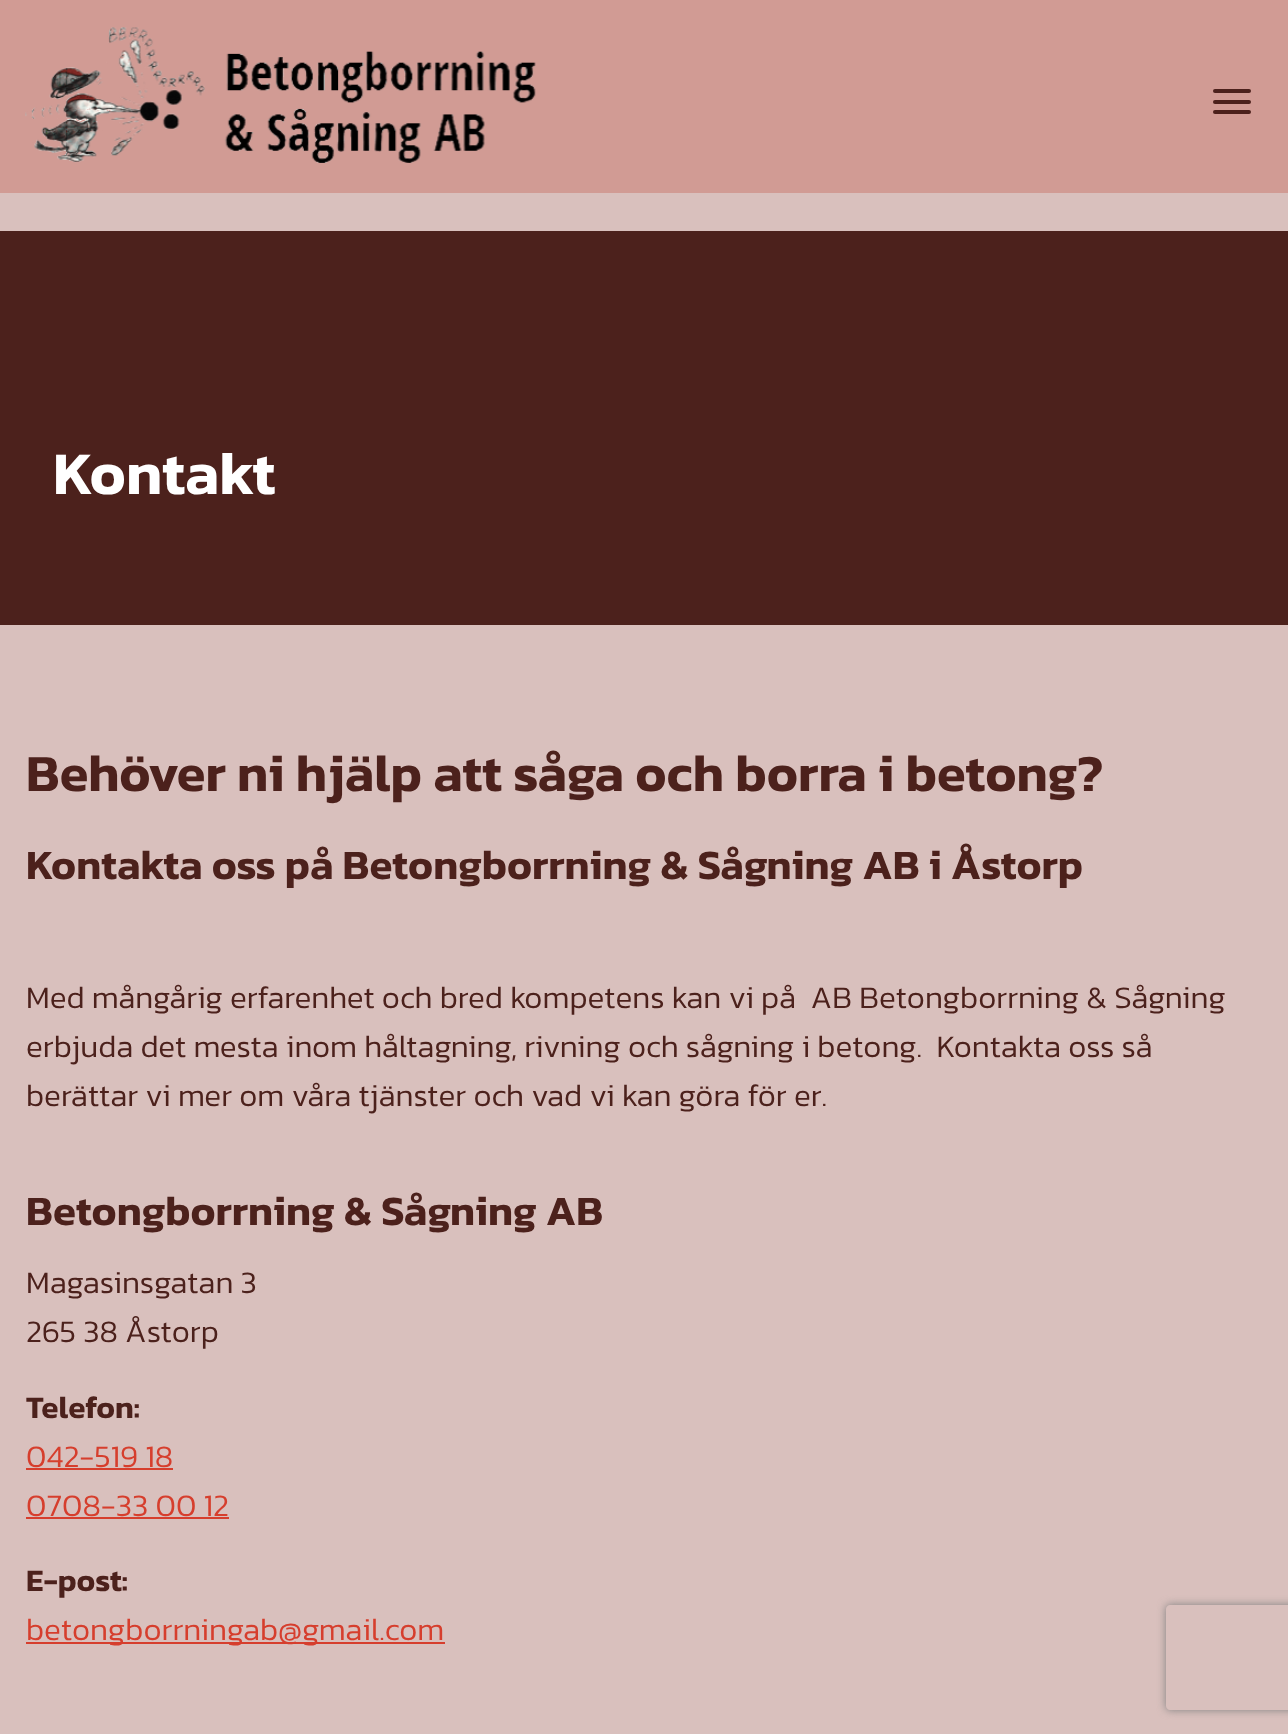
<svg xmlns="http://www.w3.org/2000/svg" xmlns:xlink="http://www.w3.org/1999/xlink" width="1288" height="1734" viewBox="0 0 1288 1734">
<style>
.cls-1{font:600 61px Kanit;fill:#ffffff}
.cls-2{font:600 52.5px Kanit;fill:#4c211c}
.cls-3{font:600 42px Kanit;fill:#4c211c}
.cls-4{font:300 31.5px Kanit;fill:#4c211c}
.cls-5{font:600 31.5px Kanit;fill:#4c211c}
.cls-6{font:300 31.5px Kanit;fill:#d63e2d}
</style>
<defs>
<clipPath id="clip1"><path d="M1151 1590H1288V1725H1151ZM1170 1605H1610C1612 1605 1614 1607 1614 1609V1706C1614 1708 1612 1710 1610 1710H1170C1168 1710 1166 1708 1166 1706V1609C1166 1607 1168 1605 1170 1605Z" clip-rule="evenodd"/></clipPath>
</defs>
<rect width="100%" height="100%" fill="#d9c0bd"/>
<rect fill="#d19b94" x="0" y="0" width="1288" height="193"/>
<image xlink:href="image0.png" x="25" y="27" width="511" height="136"/>
<rect fill="#4c211c" x="1213" y="89" width="38" height="4" rx="2"/>
<rect fill="#4c211c" x="1213" y="100" width="38" height="4" rx="2"/>
<rect fill="#4c211c" x="1213" y="110" width="38" height="4" rx="2"/>
<rect fill="#4c211c" x="0" y="231" width="1288" height="394"/>
<rect fill="#d63e2d" x="26" y="1468" width="147" height="2"/>
<rect fill="#d63e2d" x="26" y="1517" width="203" height="2"/>
<rect fill="#d63e2d" x="26" y="1642" width="419" height="2"/>
<g clip-path="url(#clip1)">
<rect fill="#808080" filter="blur(4.5px)" x="1166" y="1605" width="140" height="105" rx="4"/>
</g>
<text class="cls-1" x="53" y="494">Kontakt</text>
<text class="cls-2" x="26" y="791">Behöver ni hjälp att såga och borra i betong?</text>
<text class="cls-3" x="26" y="879">Kontakta oss på Betongborrning &amp; Sågning AB i Åstorp</text>
<text class="cls-4" xml:space="preserve"><tspan x="26" y="1008">Med mångårig erfarenhet och bred kompetens kan vi på  AB Betongborrning &amp; Sågning</tspan><tspan x="26" y="1057">erbjuda det mesta inom håltagning, rivning och sågning i betong.  Kontakta oss så</tspan><tspan x="26" y="1106">berättar vi mer om våra tjänster och vad vi kan göra för er.</tspan></text>
<text class="cls-3" x="26" y="1225">Betongborrning &amp; Sågning AB</text>
<text class="cls-4"><tspan x="26" y="1293">Magasinsgatan 3</tspan><tspan x="26" y="1342">265 38 Åstorp</tspan></text>
<text class="cls-5" x="26" y="1418">Telefon:</text>
<text class="cls-6"><tspan x="26" y="1467">042-519 18</tspan><tspan x="26" y="1516">0708-33 00 12</tspan></text>
<text class="cls-5" x="26" y="1591">E-post:</text>
<text class="cls-6" x="26" y="1640">betongborrningab@gmail.com</text>
</svg>
